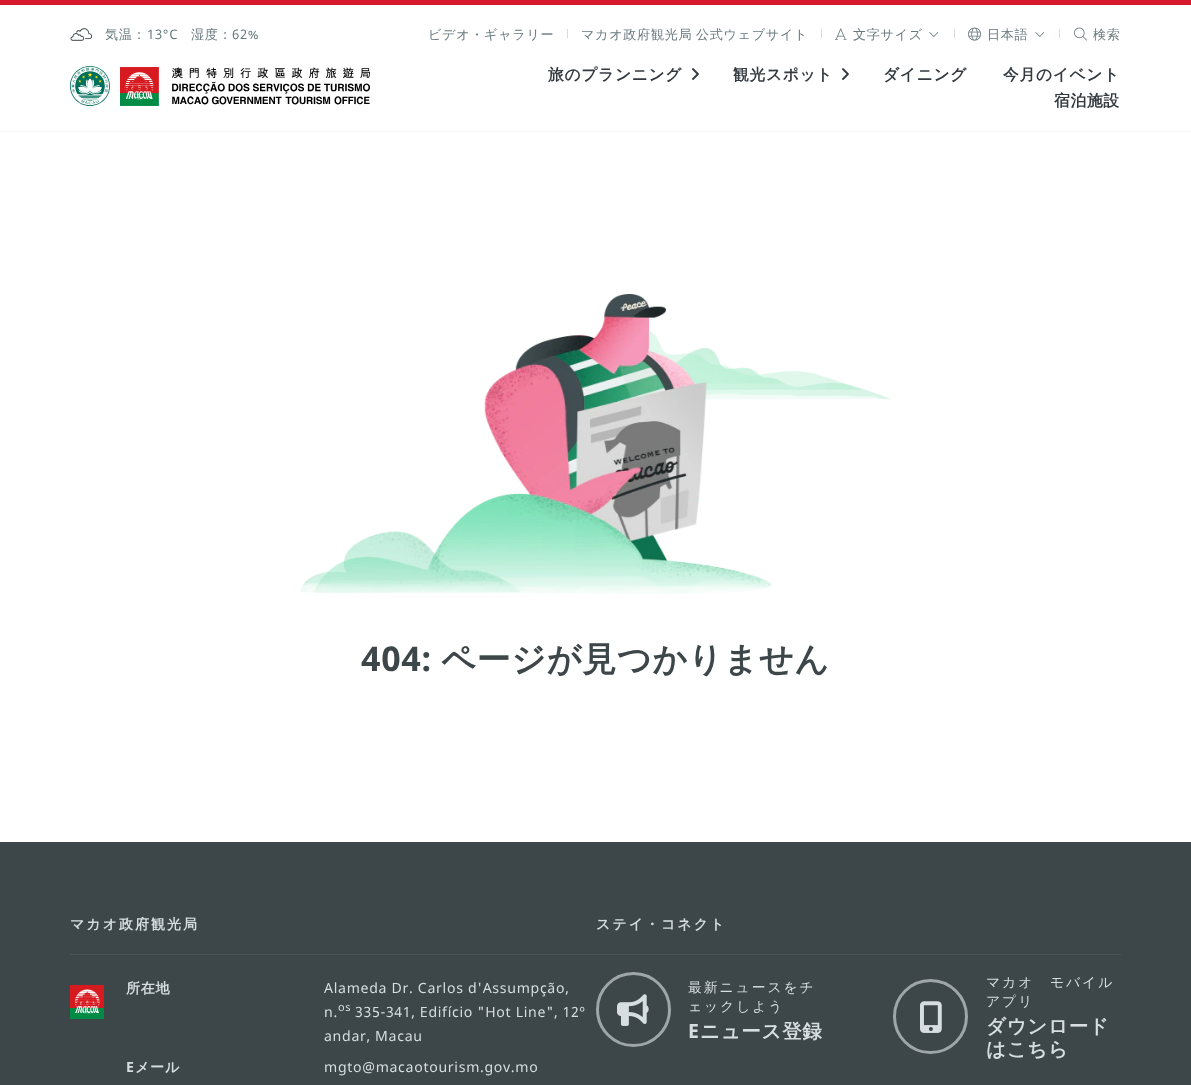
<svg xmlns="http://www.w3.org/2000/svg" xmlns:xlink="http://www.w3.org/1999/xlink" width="1191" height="1085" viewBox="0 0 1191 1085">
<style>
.cls-1{font:500 13.1px WenQuanYi Zen Hei;letter-spacing:0.7px;fill:#69797e}
.cls-2{font:13.1px Noto Sans;letter-spacing:0.7px;fill:#69797e}
.cls-3{font:bold 15.75px WenQuanYi Zen Hei;letter-spacing:0.7px;fill:#343a40}
.cls-4{font:bold 34px Noto Sans;letter-spacing:0.7px;fill:#3d4649}
.cls-5{font:bold 34px WenQuanYi Zen Hei;letter-spacing:0.7px;fill:#3d4649}
.cls-6{font:bold 14px WenQuanYi Zen Hei;letter-spacing:2px;fill:#d6dee1}
.cls-7{font:bold 14.1px WenQuanYi Zen Hei;letter-spacing:0.7px;fill:#d6dee1}
.cls-8{font:14.1px Noto Sans;letter-spacing:0.7px;fill:#d6dee1}
.cls-9{font:11px Noto Sans;letter-spacing:0.7px;fill:#d6dee1}
.cls-10{font:bold 14.1px Noto Sans;letter-spacing:0.7px;fill:#d6dee1}
.cls-11{font:500 13.75px WenQuanYi Zen Hei;letter-spacing:2px;fill:#d6dee1}
.cls-12{font:bold 19.5px Noto Sans;letter-spacing:0.7px;fill:#d6dee1}
.cls-13{font:bold 19.5px WenQuanYi Zen Hei;letter-spacing:0.7px;fill:#d6dee1}
</style>
<rect width="100%" height="100%" fill="#ffffff"/>
<rect fill="#d7192e" x="0" y="0" width="1191" height="5"/>
<rect fill="#f9f7f4" x="0" y="131" width="1191" height="1"/>
<image xlink:href="image0.png" x="70" y="28" width="22" height="13"/>
<rect fill="#dadada" x="567" y="29" width="1" height="9"/>
<rect fill="#dadada" x="821" y="29" width="1" height="9"/>
<image xlink:href="image1.png" x="835" y="28" width="12" height="12"/>
<image xlink:href="image2.png" x="929" y="32" width="10" height="5"/>
<rect fill="#dadada" x="954" y="29" width="1" height="9"/>
<image xlink:href="image3.png" x="968" y="27" width="14" height="14"/>
<image xlink:href="image2.png" x="1035" y="32" width="10" height="5"/>
<rect fill="#dadada" x="1059" y="29" width="1" height="9"/>
<image xlink:href="image4.png" x="1074" y="27" width="13" height="14"/>
<image xlink:href="image5.png" x="70" y="66" width="40" height="40"/>
<image xlink:href="image6.png" x="120" y="67" width="250" height="39"/>
<image xlink:href="image7.png" x="692" y="68" width="7" height="12"/>
<image xlink:href="image7.png" x="842" y="68" width="7" height="12"/>
<image xlink:href="image8.png" x="300" y="294" width="591" height="300"/>
<rect fill="#3d4649" x="0" y="842" width="1191" height="243"/>
<rect fill="#495357" x="70" y="954" width="1051" height="1"/>
<image xlink:href="image9.png" x="70" y="985" width="34" height="34"/>
<circle fill="none" stroke="#9ea6a9" stroke-width="3" cx="633.5" cy="1009.5" r="36"/>
<image xlink:href="image10.png" x="617" y="994" width="32" height="32"/>
<circle fill="none" stroke="#9ea6a9" stroke-width="3" cx="930.5" cy="1016.5" r="36"/>
<image xlink:href="image11.png" x="920" y="1001" width="22" height="32"/>
<text class="cls-1" x="105" y="39">気温：</text>
<text class="cls-2" x="147" y="39">13°C</text>
<text class="cls-1" x="191" y="39">湿度：</text>
<text class="cls-2" x="232" y="39">62%</text>
<text class="cls-1" x="428" y="39">ビデオ・ギャラリー</text>
<text class="cls-1" x="581" y="39" word-spacing="-1">マカオ政府観光局 公式ウェブサイト</text>
<text class="cls-1" x="853" y="39">文字サイズ</text>
<text class="cls-1" x="987" y="39">日本語</text>
<text class="cls-1" x="1093" y="39">検索</text>
<text class="cls-3" x="548" y="80">旅のプランニング</text>
<text class="cls-3" x="733" y="80">観光スポット</text>
<text class="cls-3" x="883" y="80">ダイニング</text>
<text class="cls-3" x="1003" y="80">今月のイベント</text>
<text class="cls-3" x="1054" y="106">宿泊施設</text>
<text class="cls-4" x="361" y="671">404:</text>
<text class="cls-5" x="441" y="671">ページが見つかりません</text>
<text class="cls-6" x="70" y="929">マカオ政府観光局</text>
<text class="cls-7" x="126" y="993">所在地</text>
<text class="cls-8"><tspan x="324" y="993">Alameda Dr. Carlos d'Assumpção,</tspan><tspan x="324" y="1017">n.</tspan></text>
<text class="cls-9" x="338" y="1011">os</text>
<text class="cls-8" x="355" y="1017">335-341, Edifício "Hot Line", 12º</text>
<text class="cls-8" x="324" y="1041">andar, Macau</text>
<text class="cls-10" x="126" y="1072">E</text>
<text class="cls-7" x="135" y="1072">メール</text>
<text class="cls-8" x="324" y="1072">mgto@macaotourism.gov.mo</text>
<text class="cls-6" x="596" y="929">ステイ・コネクト</text>
<text class="cls-11"><tspan x="688" y="992">最新ニュースをチ</tspan><tspan x="688" y="1011">ェックしよう</tspan></text>
<text class="cls-12" x="688" y="1038">E</text>
<text class="cls-13" x="700" y="1038">ニュース登録</text>
<text class="cls-11"><tspan x="986" y="987">マカオ　モバイル</tspan><tspan x="986" y="1006">アプリ</tspan></text>
<text class="cls-13"><tspan x="986" y="1033">ダウンロード</tspan><tspan x="986" y="1056">はこちら</tspan></text>
</svg>
